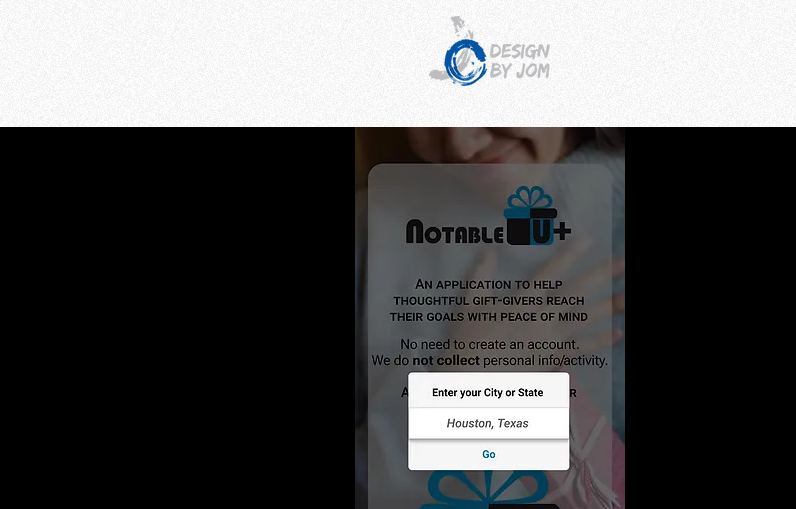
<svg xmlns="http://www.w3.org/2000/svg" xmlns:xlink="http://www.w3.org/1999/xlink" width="796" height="509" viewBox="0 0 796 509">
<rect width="100%" height="100%" fill="#ffffff"/>
<image xlink:href="image0.png" x="0" y="0" width="796" height="127"/>
<image xlink:href="image1.png" x="429" y="16" width="121" height="70"/>
<rect fill="#000000" x="0" y="127" width="796" height="382"/>
<image xlink:href="image2.png" x="355" y="127" width="270" height="382"/>
</svg>
